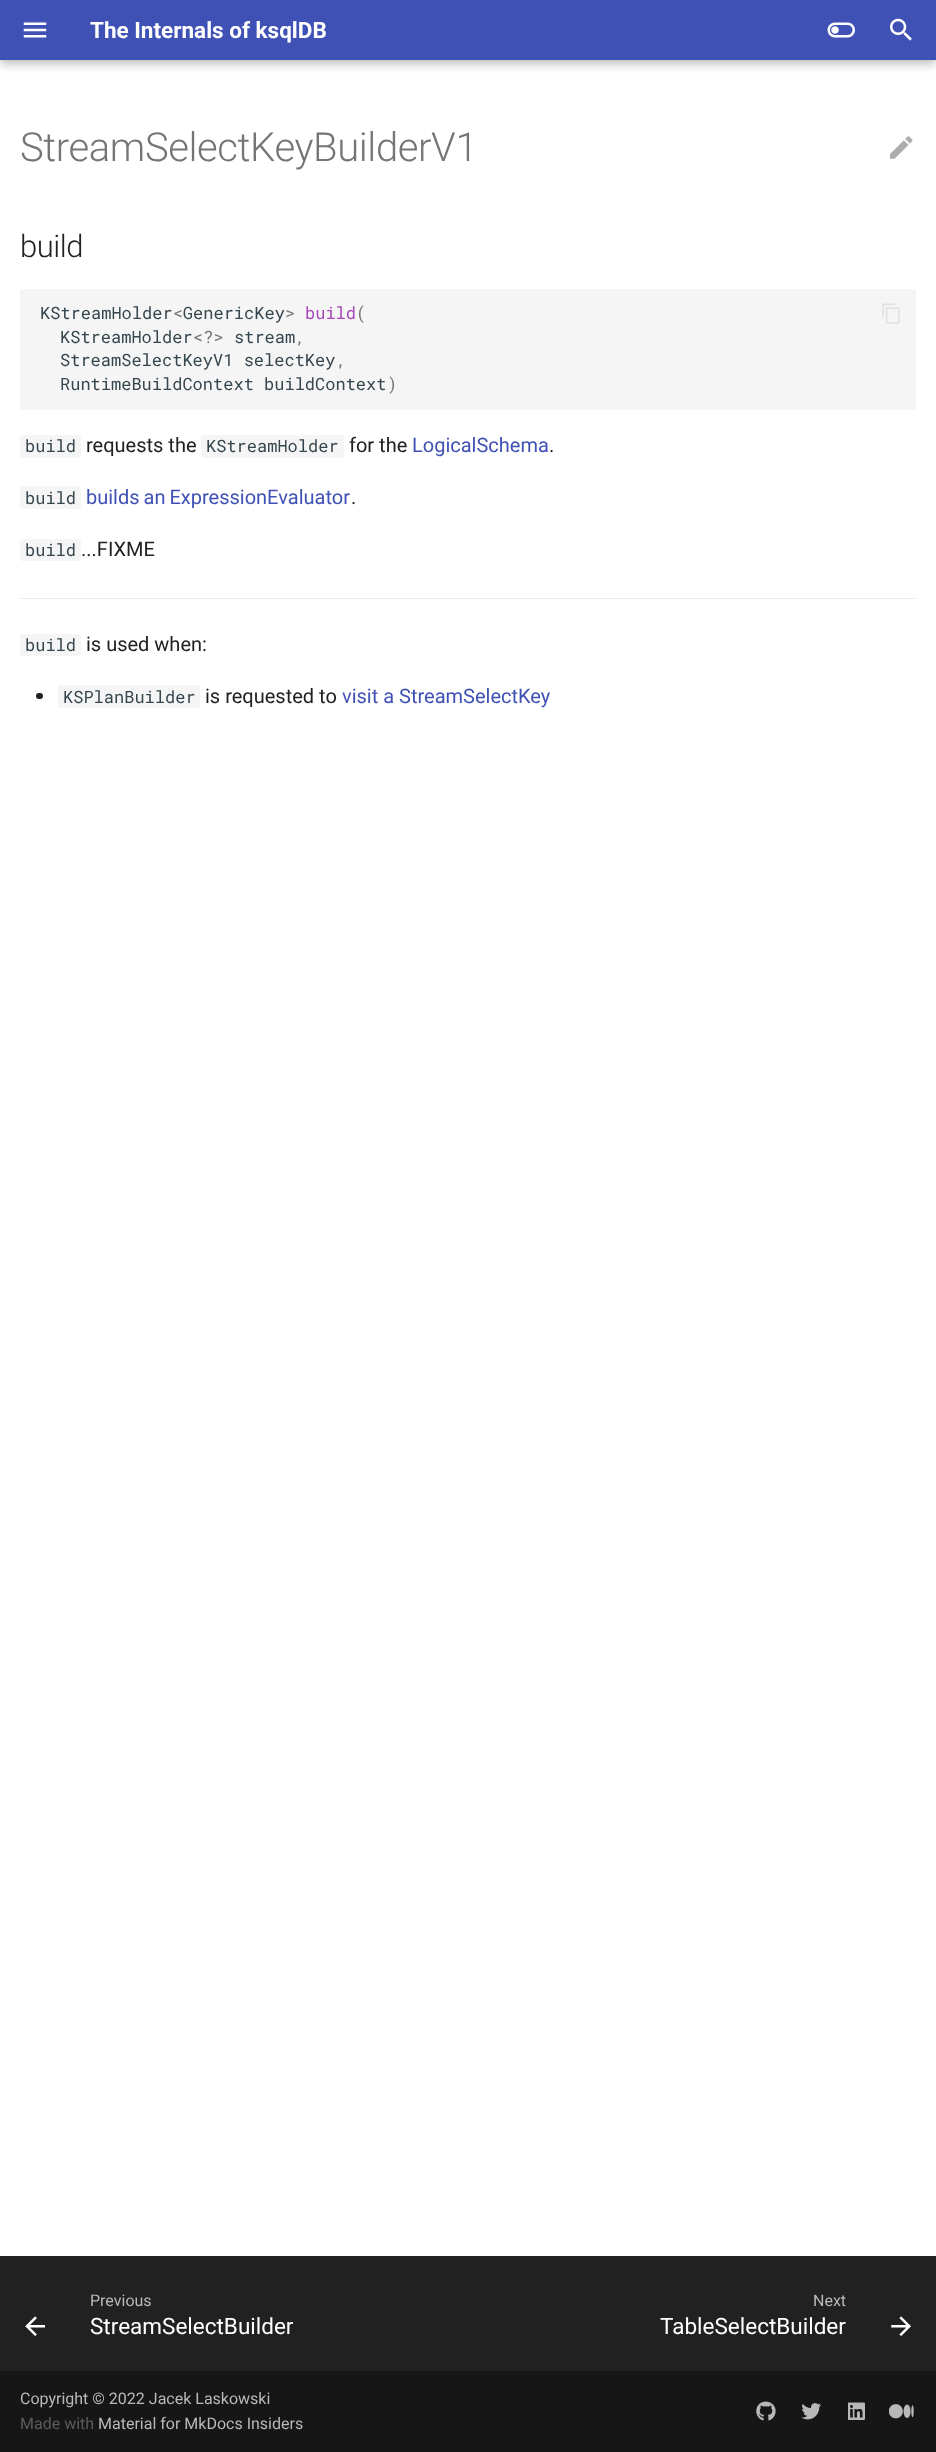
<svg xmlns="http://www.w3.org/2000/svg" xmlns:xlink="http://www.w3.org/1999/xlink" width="936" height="2452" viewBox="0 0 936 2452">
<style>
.cls-1{font:bold 22.5px Roboto;fill:#ffffff}
.cls-2{font:300 40px Roboto;letter-spacing:-0.4px;fill:#757575}
.cls-3{font:300 31px Roboto;letter-spacing:-0.5px;fill:#212121}
.cls-4{font:17px Roboto Mono;fill:#36464e}
.cls-5{font:17px Roboto Mono;fill:#a846b9}
.cls-6{font:17px Roboto Mono;fill:#757575}
.cls-7{font:20px Roboto;fill:#212121}
.cls-8{font:20px Roboto;fill:#4051b5}
.cls-9{font:16px Roboto;fill:#b9b9b9}
.cls-10{font:22.5px Roboto;fill:#ffffff}
.cls-11{font:16px Roboto;fill:#5c5c5c}
</style>
<rect width="100%" height="100%" fill="#ffffff"/>
<rect fill="#000000" fill-opacity="0.2" filter="blur(5px)" x="0" y="5" width="936" height="60"/>
<rect fill="#000000" fill-opacity="0.1" filter="blur(2.5px)" x="0" y="0" width="936" height="60"/>
<rect fill="#4051b5" x="0" y="0" width="936" height="60"/>
<image xlink:href="image0.png" x="23" y="22" width="24" height="16"/>
<image xlink:href="image1.png" x="827" y="22" width="28" height="16"/>
<image xlink:href="image2.png" x="890" y="18" width="22" height="23"/>
<image xlink:href="image3.png" x="890" y="136" width="23" height="23"/>
<rect fill="#f5f5f5" x="20" y="289" width="896" height="121" rx="2.5"/>
<image xlink:href="image4.png" x="882" y="303" width="18" height="21"/>
<rect fill="#f5f5f5" x="20" y="435" width="61" height="23" rx="2.5"/>
<rect fill="#f5f5f5" x="201" y="435" width="143" height="23" rx="2.5"/>
<rect fill="#f5f5f5" x="20" y="486" width="61" height="23" rx="2.5"/>
<rect fill="#f5f5f5" x="20" y="539" width="61" height="22" rx="2.5"/>
<rect fill="#ededed" x="20" y="598" width="896" height="1"/>
<rect fill="#f5f5f5" x="20" y="634" width="61" height="22" rx="2.5"/>
<rect fill="#212121" x="36" y="693" width="7" height="6" rx="3"/>
<rect fill="#f5f5f5" x="58" y="685" width="142" height="23" rx="2.5"/>
<rect fill="#212121" x="0" y="2256" width="936" height="115"/>
<image xlink:href="image5.png" x="25" y="2316" width="20" height="20"/>
<image xlink:href="image6.png" x="891" y="2316" width="20" height="20"/>
<rect fill="#161616" x="0" y="2371" width="936" height="81"/>
<image xlink:href="image7.png" x="756" y="2401" width="20" height="20"/>
<image xlink:href="image8.png" x="801" y="2403" width="20" height="17"/>
<image xlink:href="image9.png" x="848" y="2402" width="17" height="18"/>
<image xlink:href="image10.png" x="889" y="2404" width="25" height="15"/>
<text class="cls-1" x="90" y="38">The Internals of ksqlDB</text>
<text class="cls-2" x="20" y="161">StreamSelectKeyBuilderV1</text>
<text class="cls-3" x="20" y="257">build</text>
<text class="cls-4" x="40" y="319">KStreamHolder GenericKey</text>
<text class="cls-5" x="305" y="319">build</text>
<text class="cls-6" x="356" y="319">(</text>
<text class="cls-6" x="173" y="319">&lt;</text>
<text class="cls-6" x="285" y="319">&gt;</text>
<text class="cls-4" x="60" y="343">KStreamHolder</text>
<text class="cls-6" x="193" y="343">&lt;?&gt;</text>
<text class="cls-4" x="234" y="343">stream</text>
<text class="cls-6" x="295" y="343">,</text>
<text class="cls-4" x="60" y="366">StreamSelectKeyV1 selectKey</text>
<text class="cls-6" x="336" y="366">,</text>
<text class="cls-4" x="60" y="390">RuntimeBuildContext buildContext</text>
<text class="cls-6" x="387" y="390">)</text>
<text class="cls-4" x="25" y="452">build</text>
<text class="cls-7" x="86" y="452">requests the</text>
<text class="cls-4" x="206" y="452">KStreamHolder</text>
<text class="cls-7" x="349" y="452">for the</text>
<text class="cls-8" x="412" y="452">LogicalSchema</text>
<text class="cls-7" x="549" y="452">.</text>
<text class="cls-4" x="25" y="504">build</text>
<text class="cls-8" x="86" y="504" word-spacing="-1">builds an ExpressionEvaluator</text>
<text class="cls-7" x="351" y="504">.</text>
<text class="cls-4" x="25" y="556">build</text>
<text class="cls-7" x="81" y="556">...FIXME</text>
<text class="cls-4" x="25" y="651">build</text>
<text class="cls-7" x="86" y="651">is used when:</text>
<text class="cls-4" x="63" y="703">KSPlanBuilder</text>
<text class="cls-7" x="205" y="703">is requested to</text>
<text class="cls-8" x="342" y="703">visit a StreamSelectKey</text>
<text class="cls-9" x="90" y="2306">Previous</text>
<text class="cls-10" x="90" y="2334">StreamSelectBuilder</text>
<text class="cls-9" x="813" y="2306">Next</text>
<text class="cls-10" x="660" y="2334">TableSelectBuilder</text>
<text class="cls-9" x="20" y="2404">Copyright © 2022 Jacek Laskowski</text>
<text class="cls-11" x="20" y="2429">Made with</text>
<text class="cls-9" x="98" y="2429">Material for MkDocs Insiders</text>
</svg>
